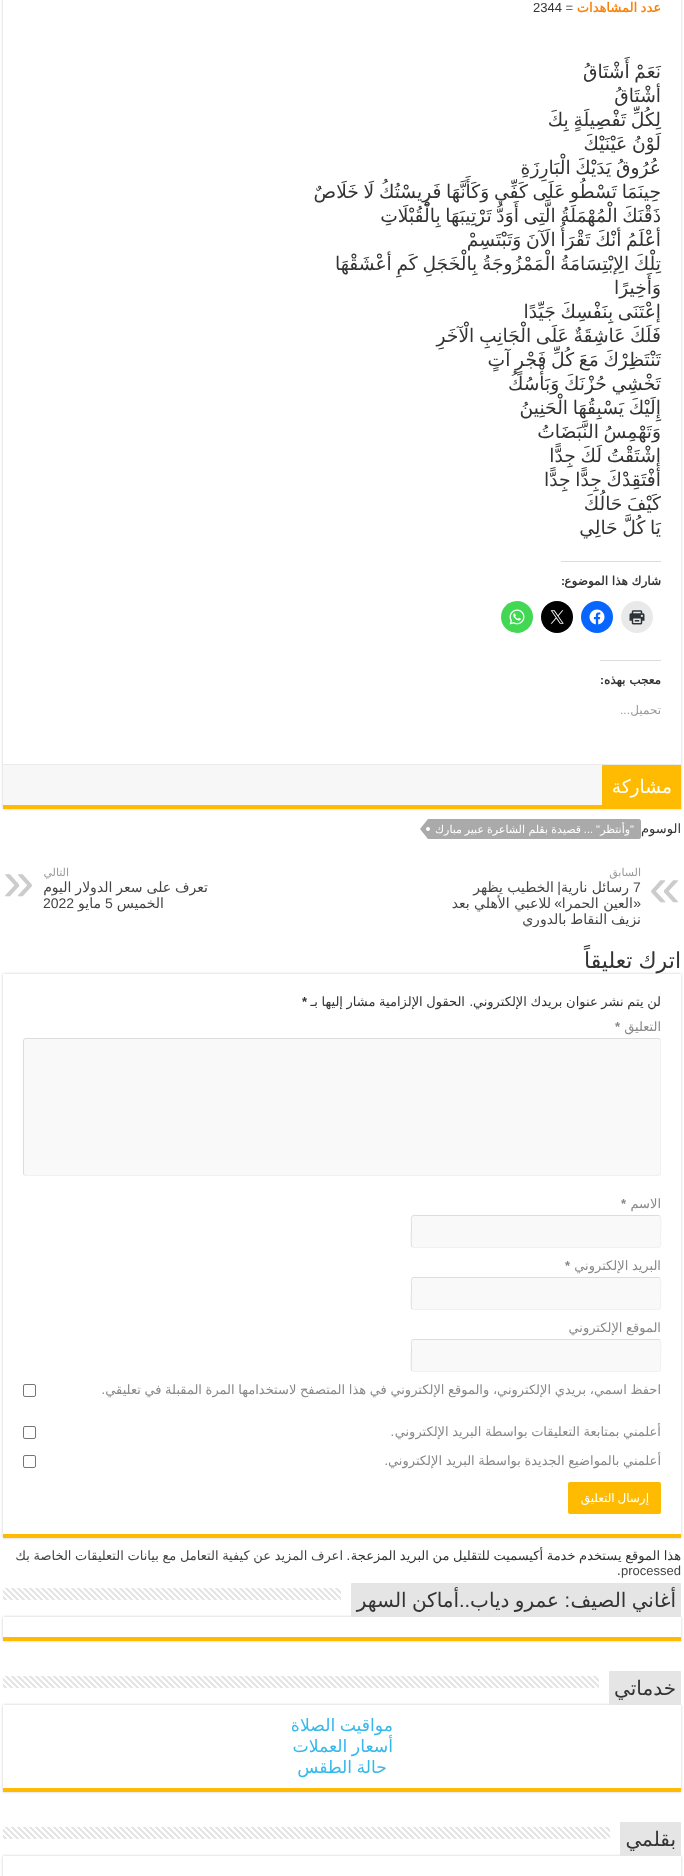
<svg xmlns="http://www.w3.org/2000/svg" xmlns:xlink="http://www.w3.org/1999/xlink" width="684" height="1876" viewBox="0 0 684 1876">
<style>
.cls-1{font:bold 13px DejaVu Sans;direction:rtl;fill:#f9830a}
.cls-2{font:13px Liberation Sans;fill:#333333}
.cls-3{font:18.7px DejaVu Sans;direction:rtl;fill:#333333}
.cls-4{font:bold 12px DejaVu Sans;direction:rtl;fill:#333333}
.cls-5{font:bold 12px Liberation Sans;direction:rtl;fill:#333333}
.cls-6{font:12px DejaVu Sans;direction:rtl;fill:#999999}
.cls-7{font:12px Liberation Sans;direction:rtl;fill:#999999}
.cls-8{font:18.7px DejaVu Sans;direction:rtl;fill:#ffffff}
.cls-9{font:13px DejaVu Sans;direction:rtl;fill:#333333}
.cls-10{font:11px Liberation Sans;direction:rtl;fill:#ffffff}
.cls-11{font:11px DejaVu Sans;direction:rtl;fill:#ffffff}
.cls-12{font:11px DejaVu Sans;direction:rtl;fill:#999999}
.cls-13{font:56px Liberation Sans;fill:#cccccc}
.cls-14{font:14px Liberation Sans;fill:#444444}
.cls-15{font:14px DejaVu Sans;direction:rtl;fill:#444444}
.cls-16{font:14px Liberation Sans;direction:rtl;fill:#444444}
.cls-17{font:22px DejaVu Sans;direction:rtl;fill:#333333}
.cls-18{font:bold 13px Liberation Sans;fill:#333333}
.cls-19{font:13px Liberation Sans;direction:rtl;fill:#333333}
.cls-20{font:13px DejaVu Sans;direction:rtl;fill:#888888}
.cls-21{font:bold 13px Liberation Sans;fill:#888888}
.cls-22{font:13px Liberation Sans;direction:rtl;fill:#888888}
.cls-23{font:12px DejaVu Sans;direction:rtl;fill:#ffffff}
.cls-24{font:13px DejaVu Sans;direction:rtl;fill:#444444}
.cls-25{font:13px Liberation Sans;fill:#444444}
.cls-26{font:20px DejaVu Sans;direction:rtl;fill:#333333}
.cls-27{font:20px Liberation Sans;direction:rtl;fill:#333333}
.cls-28{font:17.25px DejaVu Sans;direction:rtl;fill:#37b8eb}
</style>
<defs>
<clipPath id="clip1"><path d="M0 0H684V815H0ZM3-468H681V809H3Z" clip-rule="evenodd"/></clipPath>
<clipPath id="clip2"><path d="M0 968H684V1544H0ZM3 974H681V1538H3Z" clip-rule="evenodd"/></clipPath>
<clipPath id="clip3"><path d="M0 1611H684V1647H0ZM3 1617H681V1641H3Z" clip-rule="evenodd"/></clipPath>
<clipPath id="clip4"><path d="M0 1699H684V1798H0ZM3 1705H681V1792H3Z" clip-rule="evenodd"/></clipPath>
<clipPath id="clip5"><path d="M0 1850H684V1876H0ZM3 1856H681V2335H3Z" clip-rule="evenodd"/></clipPath>
<clipPath id="clip6"><rect x="3" y="866" width="678" height="61"/></clipPath>
</defs>
<rect width="100%" height="100%" fill="#ffffff"/>
<g clip-path="url(#clip1)">
<rect fill="#cacaca" filter="blur(1.5px)" x="3" y="-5" width="678" height="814"/>
</g>
<rect fill="#ffbb01" x="3" y="805" width="678" height="4"/>
<rect fill="#dcdcde" x="561" y="561" width="100" height="1"/>
<circle fill="#e9e9e9" cx="637" cy="617" r="16"/>
<image xlink:href="image0.png" x="629" y="610" width="16" height="15"/>
<circle fill="#0866ff" cx="597" cy="617" r="16"/>
<image xlink:href="image1.png" x="589" y="609" width="16" height="16"/>
<circle fill="#000000" cx="557" cy="617" r="16"/>
<image xlink:href="image2.png" x="550" y="610" width="14" height="14"/>
<circle fill="#43d854" cx="517" cy="617" r="16"/>
<image xlink:href="image3.png" x="509" y="609" width="16" height="16"/>
<rect fill="#dcdcde" x="600" y="660" width="61" height="1"/>
<rect fill="#f7f7f7" x="3" y="765" width="599" height="40"/>
<rect fill="#eaeaea" x="3" y="764" width="678" height="1"/>
<rect fill="#ffbb01" x="602" y="765" width="79" height="40"/>
<path fill="#aaaaaa" d="M428 819H639C640 819 641 820 641 821V837C641 838 640 839 639 839H428Z"/>
<path fill="#aaaaaa" d="M428 819V839L420 829Z"/>
<circle fill="#ffffff" cx="428" cy="829" r="2"/>
<g clip-path="url(#clip2)">
<rect fill="#cacaca" filter="blur(1.5px)" x="3" y="974" width="678" height="564"/>
</g>
<rect fill="#ffbb01" x="3" y="1534" width="678" height="4"/>
<rect fill="#f9f9f9" x="23" y="1038" width="638" height="138" rx="3"/>
<path fill="none" stroke="#f1f1f1" d="M660 1039L660.5 1041V1173C660.5 1174.5 659.5 1175.5 658 1175.5H26L24 1175"/>
<path fill="none" stroke="#dddddd" d="M24 1175L23.5 1173V1041C23.5 1039.5 24.5 1038.5 26 1038.5H658L660 1039"/>
<rect fill="#f9f9f9" x="411" y="1215" width="250" height="33" rx="3"/>
<path fill="none" stroke="#f1f1f1" d="M660 1216C661.5 1218 660.5 1233 660.5 1236V1240.5C660.5 1242.5 661.5 1247.5 658 1247.5H413.5L412 1247"/>
<path fill="none" stroke="#dddddd" d="M412 1247C410.5 1245 411.5 1230 411.5 1227V1222.5C411.5 1220.5 410.5 1215.5 414 1215.5H658.5L660 1216"/>
<rect fill="#f9f9f9" x="411" y="1277" width="250" height="33" rx="3"/>
<path fill="none" stroke="#f1f1f1" d="M660 1278C661.5 1280 660.5 1295 660.5 1298V1302.5C660.5 1304.5 661.5 1309.5 658 1309.5H413.5L412 1309"/>
<path fill="none" stroke="#dddddd" d="M412 1309C410.5 1307 411.5 1292 411.5 1289V1284.5C411.5 1282.5 410.5 1277.5 414 1277.5H658.5L660 1278"/>
<rect fill="#f9f9f9" x="411" y="1339" width="250" height="33" rx="3"/>
<path fill="none" stroke="#f1f1f1" d="M660 1340C661.5 1342 660.5 1357 660.5 1360V1364.5C660.5 1366.5 661.5 1371.5 658 1371.5H413.5L412 1371"/>
<path fill="none" stroke="#dddddd" d="M412 1371C410.5 1369 411.5 1354 411.5 1351V1346.5C411.5 1344.5 410.5 1339.5 414 1339.5H658.5L660 1340"/>
<rect fill="none" stroke="#767676" x="23.5" y="1384.5" width="12" height="12" rx="1.5"/>
<rect fill="none" stroke="#767676" x="23.5" y="1426.5" width="12" height="12" rx="1.5"/>
<rect fill="none" stroke="#767676" x="23.5" y="1455.5" width="12" height="12" rx="1.5"/>
<rect fill="#ffbb01" x="568" y="1482" width="93" height="32" rx="2"/>
<g clip-path="url(#clip3)">
<rect fill="#cacaca" filter="blur(1.5px)" x="3" y="1617" width="678" height="24"/>
</g>
<rect fill="#e5e5e5" x="351" y="1583" width="330" height="34" rx="1"/>
<image xlink:href="image4.png" x="3" y="1588" width="338" height="12"/>
<rect fill="#ffbb01" x="3" y="1637" width="678" height="4"/>
<g clip-path="url(#clip4)">
<rect fill="#cacaca" filter="blur(1.5px)" x="3" y="1705" width="678" height="87"/>
</g>
<rect fill="#e5e5e5" x="609" y="1671" width="72" height="34" rx="1"/>
<image xlink:href="image5.png" x="3" y="1676" width="596" height="12"/>
<rect fill="#ffbb01" x="3" y="1788" width="678" height="4"/>
<g clip-path="url(#clip5)">
<rect fill="#cacaca" filter="blur(1.5px)" x="3" y="1856" width="678" height="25"/>
</g>
<rect fill="#e5e5e5" x="620" y="1822" width="61" height="34" rx="1"/>
<image xlink:href="image6.png" x="3" y="1827" width="607" height="12"/>
<text class="cls-1" x="661" y="12" word-spacing="-0.5">عدد المشاهدات</text>
<text class="cls-2" x="533" y="12">2344 =</text>
<text class="cls-3"><tspan x="661" y="78" word-spacing="-1.25">نَعَمْ أَشْتَاقُ</tspan><tspan x="661" y="102">أشْتَاقُ</tspan><tspan x="661" y="126" word-spacing="-1.25">لِكُلِّ تَفْصِيلَةٍ بِكَ</tspan><tspan x="661" y="150" word-spacing="-1.25">لَوْنُ عَيْنَيْكَ</tspan><tspan x="661" y="174" word-spacing="-1.25">عُرُوقُ يَدَيْكَ الْبَارِزَةِ</tspan><tspan x="661" y="198" word-spacing="-1.25">حِينَمَا تَسْطُو عَلَى كَفِّي وَكَأَنَّهَا فَرِيسْتُكُ لَا خَلَاصٌ</tspan><tspan x="661" y="222" word-spacing="-1.25">ذَقْنَكَ الْمُهْمَلَةُ الَّتِى أَوَدُّ تَرْتِيبَهَا بِالْقُبْلَاتِ</tspan><tspan x="661" y="246" word-spacing="-1.25">أعْلَمُ أنْكَ تَقْرَأُ الَآنَ وَتَبْتَسِمْ</tspan><tspan x="661" y="270" word-spacing="-1.25">تِلْكَ الِإبْتِسَامَةُ الْمَمْزُوجَةُ بِالْخَجَلِ كَمِ أعْشَقْهَا</tspan><tspan x="661" y="294">وَأَخِيرًا</tspan><tspan x="661" y="318" word-spacing="-1.25">إعْتَنَى بِنَفْسِكَ جَيِّدًا</tspan><tspan x="661" y="342" word-spacing="-1.25">فَلَكَ عَاشِقَةٌ عَلَى الْجَانِبِ الْآخَرِ</tspan><tspan x="661" y="366" word-spacing="-1.25">تَنْتَظِرْكَ مَعَ كُلِّ فَجْرٍ آتٍ</tspan><tspan x="661" y="390" word-spacing="-1.25">تَخْشِي حُزْنَكَ وَبَأْسُكُ</tspan><tspan x="661" y="414" word-spacing="-1.25">إِلَيْكَ يَسْبِقُهَا الْحَنِينُ</tspan><tspan x="661" y="438" word-spacing="-1.25">وَتَهْمِسُ النَّبَضَاتُ</tspan><tspan x="661" y="462" word-spacing="-1.25">إشْتَقْتُ لَكَ جِدًّا</tspan><tspan x="661" y="486" word-spacing="-1.25">أفْتَقِدْكَ جِدًّا جِدًّا</tspan><tspan x="661" y="510" word-spacing="-1.25">كَيْفَ حَالُكَ</tspan><tspan x="661" y="534" word-spacing="-1.25">يَا كُلَّ حَالِي</tspan></text>
<text class="cls-4" x="661" y="585">شارك هذا الموضوع</text>
<text class="cls-5" x="565" y="585">:</text>
<text class="cls-4" x="661" y="684">معجب بهذه</text>
<text class="cls-5" x="604" y="684">:</text>
<text class="cls-6" x="661" y="714">تحميل</text>
<text class="cls-7" x="630" y="714">...</text>
<text class="cls-8" x="672" y="793">مشاركة</text>
<text class="cls-9" x="681" y="833">الوسوم</text>
<text class="cls-10" x="634" y="833">"</text>
<text class="cls-11" x="630" y="833">وأنتظر</text>
<text class="cls-10" x="600" y="833">" ...</text>
<text class="cls-11" x="581" y="833">قصيدة</text>
<text class="cls-11" x="548" y="833">بقلم</text>
<text class="cls-11" x="525" y="833">الشاعرة</text>
<text class="cls-11" x="462" y="833">مبارك</text>
<text class="cls-11" x="484" y="833">عبير</text>
<text class="cls-12" x="641" y="876">السابق</text>
<text class="cls-13" x="649" y="906">«</text>
<text class="cls-14" x="633" y="892">7</text>
<text class="cls-15" x="629" y="892">رسائل نارية</text>
<text class="cls-16" x="561" y="892">|</text>
<text class="cls-15" x="554" y="892">الخطيب يظهر</text>
<text class="cls-16" x="641" y="908">«</text>
<text class="cls-15" x="633" y="908">العين الحمرا</text>
<text class="cls-16" x="562" y="908">»</text>
<text class="cls-15" x="551" y="908">للاعبي الأهلي بعد</text>
<g clip-path="url(#clip6)">
<text class="cls-15" x="641" y="924" word-spacing="-0.5">نزيف النقاط بالدوري</text>
</g>
<text class="cls-12" x="69" y="876">التالي</text>
<text class="cls-13" x="3" y="900">»</text>
<text class="cls-15" x="208" y="892" word-spacing="-0.5">تعرف على سعر الدولار اليوم</text>
<text class="cls-15" x="164" y="908">الخميس</text>
<text class="cls-14" x="105" y="908">5</text>
<text class="cls-15" x="101" y="908">مايو</text>
<text class="cls-14" x="43" y="908">2022</text>
<text class="cls-17" x="681" y="968" word-spacing="-1">اترك تعليقاً</text>
<text class="cls-9" x="661" y="1006" word-spacing="-0.5">لن يتم نشر عنوان بريدك الإلكتروني</text>
<text class="cls-9" x="465" y="1006" word-spacing="-0.5">الحقول الإلزامية مشار إليها بـ</text>
<text class="cls-18" x="302" y="1006">*</text>
<text class="cls-19" x="473" y="1006">.</text>
<text class="cls-20" x="661" y="1031">التعليق</text>
<text class="cls-21" x="615" y="1031">*</text>
<text class="cls-20" x="661" y="1208">الاسم</text>
<text class="cls-21" x="621" y="1208">*</text>
<text class="cls-20" x="661" y="1270" word-spacing="-0.5">البريد الإلكتروني</text>
<text class="cls-21" x="565" y="1270">*</text>
<text class="cls-20" x="661" y="1332" word-spacing="-0.5">الموقع الإلكتروني</text>
<text class="cls-20" x="661" y="1394" word-spacing="-0.5">احفظ اسمي، بريدي الإلكتروني، والموقع الإلكتروني في هذا المتصفح لاستخدامها المرة المقبلة في تعليقي</text>
<text class="cls-22" x="105" y="1394">.</text>
<text class="cls-20" x="661" y="1436" word-spacing="-0.5">أعلمني بمتابعة التعليقات بواسطة البريد الإلكتروني</text>
<text class="cls-22" x="394" y="1436">.</text>
<text class="cls-20" x="661" y="1465" word-spacing="-0.5">أعلمني بالمواضيع الجديدة بواسطة البريد الإلكتروني</text>
<text class="cls-22" x="388" y="1465">.</text>
<text class="cls-23" x="649" y="1502" word-spacing="-1">إرسال التعليق</text>
<text class="cls-9" x="681" y="1560" word-spacing="-0.5">هذا الموقع يستخدم خدمة أكيسميت للتقليل من البريد المزعجة</text>
<text class="cls-19" x="350" y="1560">.</text>
<text class="cls-24" x="343" y="1560" word-spacing="-0.5">اعرف المزيد عن كيفية التعامل مع بيانات التعليقات الخاصة بك</text>
<text class="cls-25" x="621" y="1575">processed</text>
<text class="cls-2" x="617" y="1575">.</text>
<text class="cls-26" x="676" y="1607" word-spacing="-1">أغاني الصيف</text>
<text class="cls-27" x="570" y="1607">:</text>
<text class="cls-26" x="559" y="1607" word-spacing="-1">عمرو دياب</text>
<text class="cls-27" x="470" y="1607">..</text>
<text class="cls-26" x="459" y="1607" word-spacing="-1">أماكن السهر</text>
<text class="cls-26" x="676" y="1695">خدماتي</text>
<text class="cls-28"><tspan x="393" y="1731" word-spacing="-1">مواقيت الصلاة</tspan><tspan x="393" y="1752" word-spacing="-1">أسعار العملات</tspan></text>
<text class="cls-28" x="387" y="1773" word-spacing="-1">حالة الطقس</text>
<text class="cls-26" x="676" y="1846">بقلمي</text>
</svg>
